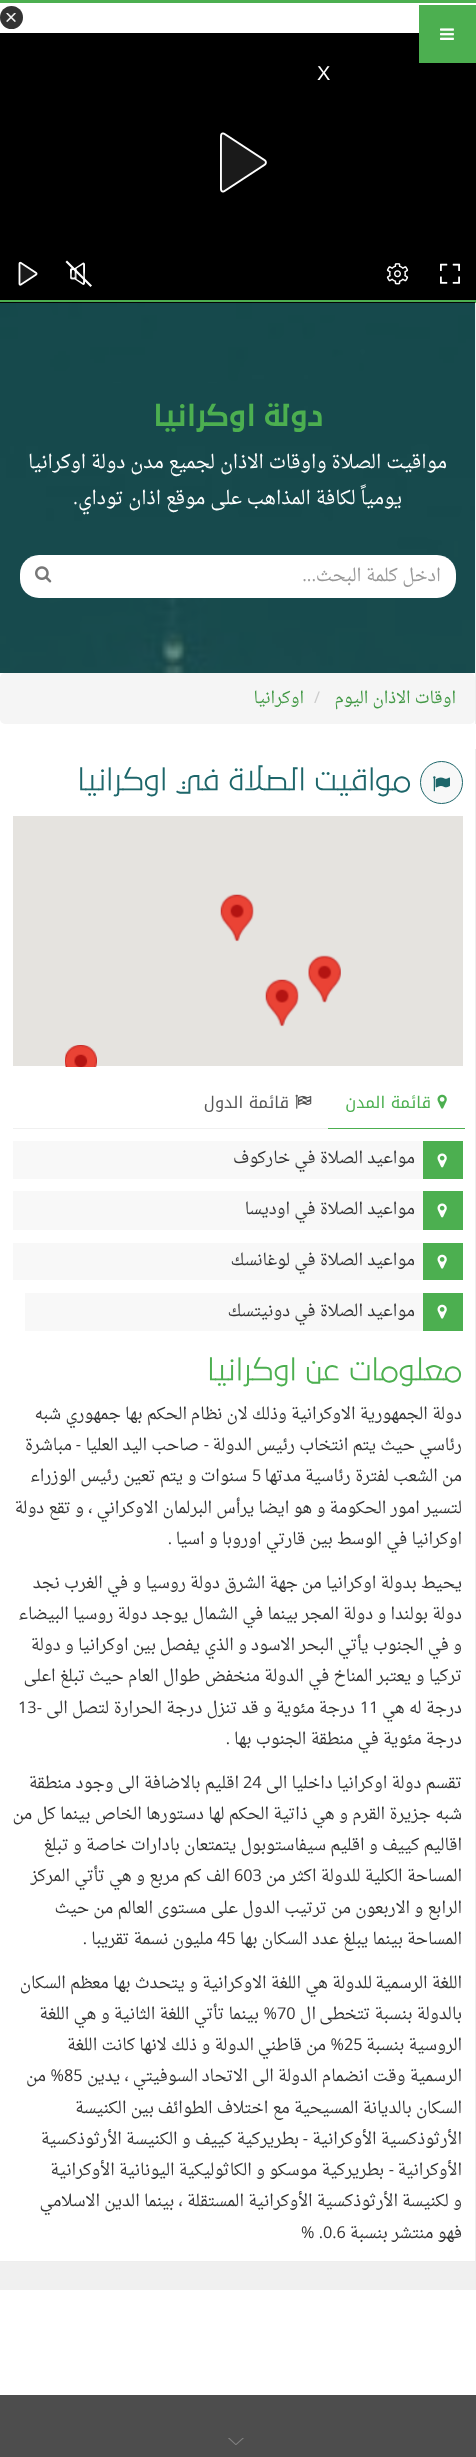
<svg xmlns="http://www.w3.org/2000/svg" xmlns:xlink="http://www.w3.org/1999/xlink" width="476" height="2457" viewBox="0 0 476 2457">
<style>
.cls-1{font:20px Liberation Sans;fill:#ffffff}
.cls-2{font:bold 27.5px '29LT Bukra';direction:rtl;fill:#4caf50}
.cls-3{font:18.75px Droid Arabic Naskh;direction:rtl;fill:#ffffff}
.cls-4{font:18.75px Open Sans;direction:rtl;fill:#ffffff}
.cls-5{font:17.5px Droid Arabic Naskh;direction:rtl;fill:#999999}
.cls-6{font:17.5px Open Sans;direction:rtl;fill:#999999}
.cls-7{font:16.25px Droid Arabic Naskh;direction:rtl;fill:#429845}
.cls-8{font:16.25px Open Sans;fill:#cccccc}
.cls-9{font:27.5px '29LT Bukra';direction:rtl;fill:#1d666a}
.cls-10{font:16.25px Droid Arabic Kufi;direction:rtl;fill:#4caf50}
.cls-11{font:16.25px Droid Arabic Kufi;direction:rtl;fill:#555555}
.cls-12{font:16.25px Droid Arabic Naskh;direction:rtl;fill:#333333}
.cls-13{font:27.5px '29LT Bukra';direction:rtl;fill:#4caf50}
.cls-14{font:16.25px Open Sans;direction:rtl;fill:#333333}
.cls-15{font:16.25px Open Sans;fill:#333333}
</style>
<rect width="100%" height="100%" fill="#ffffff"/>
<rect fill="#4caf50" x="0" y="0" width="476" height="3"/>
<rect fill="#4caf50" x="0" y="300" width="476" height="3"/>
<rect fill="#000000" x="0" y="33" width="476" height="267"/>
<rect fill="#4caf50" x="419" y="5" width="57" height="58"/>
<image xlink:href="image0.png" x="440" y="28" width="14" height="12"/>
<circle fill="#333333" cx="11.5" cy="17.5" r="11.5"/>
<image xlink:href="image1.png" x="6" y="13" width="10" height="9"/>
<image xlink:href="image2.png" x="220" y="132" width="47" height="61"/>
<image xlink:href="image3.png" x="440" y="263" width="20" height="21"/>
<image xlink:href="image4.png" x="386" y="263" width="23" height="22"/>
<image xlink:href="image5.png" x="70" y="262" width="15" height="23"/>
<rect fill="#000000" fill-opacity="0.3" filter="blur(1.5px)" x="63" y="274" width="35" height="3"/>
<path fill="#ffffff" d="M67 260.5L92 285.5L90.5 287L65.5 262Z"/>
<image xlink:href="image6.png" x="18" y="261" width="20" height="25"/>
<rect fill="#eeeeee" x="475" y="303" width="1" height="421"/>
<image xlink:href="image7.png" x="0" y="302" width="475" height="371"/>
<path fill="#ffffff" d="M64 555H437C447.5 555 456 563.5 456 574V579C456 589.5 447.5 598 437 598H64Z"/>
<path fill="#ffffff" d="M39 555H65V598H39C28.5 598 20 589.5 20 579V574C20 563.5 28.5 555 39 555Z"/>
<image xlink:href="image8.png" x="35" y="566" width="17" height="17"/>
<rect fill="#f5f5f5" x="0" y="673" width="475" height="51" rx="5"/>
<rect fill="#eeeeee" x="475" y="749" width="1" height="1541"/>
<circle fill="#f8f8f8" stroke="#1d666a" cx="441.5" cy="782.5" r="21"/>
<image xlink:href="image9.png" x="433" y="776" width="17" height="16"/>
<rect fill="#e5e3df" x="13" y="816" width="450" height="250"/>
<image xlink:href="image10.png" x="220" y="894" width="34" height="48"/>
<image xlink:href="image11.png" x="308" y="955" width="33" height="48"/>
<image xlink:href="image12.png" x="265" y="979" width="34" height="48"/>
<image xlink:href="image13.png" x="65" y="1045" width="32" height="22"/>
<rect fill="#f0f0f0" x="13" y="1128" width="315" height="1"/>
<rect fill="#4caf50" x="328" y="1128" width="137" height="1"/>
<image xlink:href="image14.png" x="437" y="1094" width="10" height="15"/>
<image xlink:href="image15.png" x="295" y="1094" width="17" height="15"/>
<rect fill="#f8f8f8" x="13" y="1141" width="410" height="38"/>
<rect fill="#4caf50" x="423" y="1141" width="40" height="38"/>
<image xlink:href="image16.png" x="437" y="1153" width="10" height="15"/>
<rect fill="#f8f8f8" x="13" y="1191" width="410" height="39"/>
<rect fill="#4caf50" x="423" y="1191" width="40" height="39"/>
<image xlink:href="image16.png" x="437" y="1203" width="10" height="15"/>
<rect fill="#f8f8f8" x="13" y="1243" width="410" height="37"/>
<rect fill="#4caf50" x="423" y="1243" width="40" height="37"/>
<image xlink:href="image17.png" x="437" y="1254" width="10" height="15"/>
<rect fill="#f8f8f8" x="25" y="1293" width="398" height="38"/>
<rect fill="#4caf50" x="423" y="1293" width="40" height="38"/>
<image xlink:href="image17.png" x="437" y="1304" width="10" height="15"/>
<rect fill="#f0f0f0" x="0" y="2262" width="475" height="28"/>
<rect fill="#eeeeee" x="0" y="2261" width="475" height="1"/>
<rect fill="#4d4d4d" x="0" y="2395" width="476" height="62"/>
<image xlink:href="image18.png" x="228" y="2438" width="16" height="7"/>
<text class="cls-1" x="317" y="80">X</text>
<text class="cls-2" x="323" y="426">دولة اوكرانيا</text>
<text class="cls-3" x="447" y="468">مواقيت الصلاة واوقات الاذان لجميع مدن دولة اوكرانيا</text>
<text class="cls-3" x="402" y="504">يومياً لكافة المذاهب على موقع اذان توداي</text>
<text class="cls-4" x="78" y="504">.</text>
<text class="cls-5" x="441" y="581">ادخل كلمة البحث</text>
<text class="cls-6" x="316" y="581">...</text>
<text class="cls-7" x="456" y="703">اوقات الاذان اليوم</text>
<text class="cls-8" x="314" y="703">/</text>
<text class="cls-7" x="304" y="703">اوكرانيا</text>
<text class="cls-9" x="411" y="790">مواقيت الصلاة في اوكرانيا</text>
<text class="cls-10" x="431" y="1108">قائمة المدن</text>
<text class="cls-11" x="289" y="1108">قائمة الدول</text>
<text class="cls-12" x="415" y="1163">مواعيد الصلاة في خاركوف</text>
<text class="cls-12" x="415" y="1214">مواعيد الصلاة في اوديسا</text>
<text class="cls-12" x="415" y="1265">مواعيد الصلاة في لوغانسك</text>
<text class="cls-12" x="415" y="1316">مواعيد الصلاة في دونيتسك</text>
<text class="cls-13" x="462" y="1380">معلومات عن اوكرانيا</text>
<text class="cls-12" x="462" y="1419">دولة الجمهورية الاوكرانية وذلك لان نظام</text>
<text class="cls-12" x="187" y="1419">الحكم بها جمهوري شبه</text>
<text class="cls-12" x="462" y="1450">رئاسي حيث يتم انتخاب رئيس الدولة</text>
<text class="cls-14" x="209" y="1450">-</text>
<text class="cls-12" x="199" y="1450">صاحب اليد العليا</text>
<text class="cls-14" x="81" y="1450">-</text>
<text class="cls-12" x="72" y="1450">مباشرة</text>
<text class="cls-12" x="462" y="1481">من الشعب لفترة رئاسية مدتها</text>
<text class="cls-15" x="252" y="1481">5</text>
<text class="cls-12" x="247" y="1481">سنوات و يتم تعين رئيس الوزراء</text>
<text class="cls-12"><tspan x="462" y="1513">لتسير امور الحكومة و هو ايضا يرأس البرلمان الاوكراني ، و تقع دولة</tspan><tspan x="462" y="1544">اوكرانيا في الوسط بين قارتي اوروبا و اسيا</tspan></text>
<text class="cls-14" x="172" y="1544">.</text>
<text class="cls-12" x="462" y="1588">يحيط بدولة اوكرانيا من</text>
<text class="cls-12" x="298" y="1588">جهة الشرق دولة روسيا و في الغرب نجد</text>
<text class="cls-12" x="462" y="1619">دولة بولندا و دولة المجر بينما في</text>
<text class="cls-12" x="238" y="1619">الشمال يوجد دولة روسيا البيضاء</text>
<text class="cls-12" x="462" y="1650">و في الجنوب يأتي البحر الاسود و الذي يفصل</text>
<text class="cls-12" x="156" y="1650">بين اوكرانيا و دولة</text>
<text class="cls-12" x="462" y="1681">تركيا و يعتبر المناخ في الدولة منخفض طوال العام حيث</text>
<text class="cls-12" x="85" y="1681">تبلغ اعلى</text>
<text class="cls-12" x="462" y="1713">درجة له هي</text>
<text class="cls-15" x="360" y="1713">11</text>
<text class="cls-12" x="355" y="1713">درجة مئوية و قد تنزل درجة الحرارة لتصل الى</text>
<text class="cls-14" x="42" y="1713">-</text>
<text class="cls-15" x="18" y="1713">13</text>
<text class="cls-12" x="462" y="1744">درجة مئوية في منطقة الجنوب بها</text>
<text class="cls-14" x="230" y="1744">.</text>
<text class="cls-12" x="462" y="1788">تقسم دولة اوكرانيا داخليا الى</text>
<text class="cls-15" x="243" y="1788">24</text>
<text class="cls-12" x="239" y="1788">اقليم بالاضافة الى وجود منطقة</text>
<text class="cls-12" x="462" y="1819">شبه جزيرة القرم و هي ذاتية الحكم لها</text>
<text class="cls-12" x="204" y="1819">دستورها الخاص بينما كل من</text>
<text class="cls-12" x="462" y="1850">اقاليم كييف و اقليم سيفاستوبول يتمتعان بادارات</text>
<text class="cls-12" x="127" y="1850">خاصة و تبلغ</text>
<text class="cls-12" x="462" y="1881">المساحة الكلية للدولة اكثر من</text>
<text class="cls-15" x="234" y="1881">603</text>
<text class="cls-12" x="230" y="1881">الف كم مربع و هي تأتي</text>
<text class="cls-12" x="70" y="1881">المركز</text>
<text class="cls-12"><tspan x="462" y="1913">الرابع و الاربعون من ترتيب الدول على مستوى العالم من حيث</tspan><tspan x="462" y="1944">المساحة</tspan></text>
<text class="cls-12" x="403" y="1944">بينما يبلغ عدد السكان بها</text>
<text class="cls-15" x="217" y="1944">45</text>
<text class="cls-12" x="213" y="1944">مليون نسمة تقريبا</text>
<text class="cls-14" x="87" y="1944">.</text>
<text class="cls-12" x="462" y="1988">اللغة الرسمية</text>
<text class="cls-12" x="372" y="1988">للدولة هي اللغة الاوكرانية و يتحدث بها معظم السكان</text>
<text class="cls-12" x="462" y="2019">بالدولة بنسبة تتخطى</text>
<text class="cls-12" x="316" y="2019">ال</text>
<text class="cls-15" x="277" y="2019">70</text>
<text class="cls-14" x="277" y="2019">%</text>
<text class="cls-12" x="259" y="2019">بينما تأتي اللغة الثانية و هي اللغة</text>
<text class="cls-12" x="462" y="2050">الروسية بنسبة</text>
<text class="cls-15" x="344" y="2050">25</text>
<text class="cls-14" x="344" y="2050">%</text>
<text class="cls-12" x="326" y="2050">من قاطني</text>
<text class="cls-12" x="254" y="2050">الدولة و ذلك لانها كانت اللغة</text>
<text class="cls-12" x="462" y="2081">الرسمية وقت انضمام الدولة الى الاتحاد</text>
<text class="cls-12" x="198" y="2081">السوفيتي ، يدين</text>
<text class="cls-15" x="64" y="2081">85</text>
<text class="cls-14" x="64" y="2081">%</text>
<text class="cls-12" x="46" y="2081">من</text>
<text class="cls-12" x="462" y="2113">السكان بالديانة المسيحية مع اختلاف الطوائف</text>
<text class="cls-12" x="154" y="2113">بين الكنيسة</text>
<text class="cls-12" x="462" y="2144">الأرثوذكسية الأوكرانية</text>
<text class="cls-14" x="308" y="2144">-</text>
<text class="cls-12" x="299" y="2144">بطريركية كييف و الكنيسة الأرثوذكسية</text>
<text class="cls-12" x="462" y="2175">الأوكرانية</text>
<text class="cls-14" x="394" y="2175">-</text>
<text class="cls-12" x="384" y="2175">بطريركية موسكو و الكاثوليكية اليونانية الأوكرانية</text>
<text class="cls-12" x="462" y="2206">و لكنيسة</text>
<text class="cls-12" x="398" y="2206">الأرثوذكسية الأوكرانية المستقلة ، بينما الدين الاسلامي</text>
<text class="cls-12" x="462" y="2238">فهو منتشر بنسبة</text>
<text class="cls-15" x="301" y="2238">% .0.6</text>
</svg>
